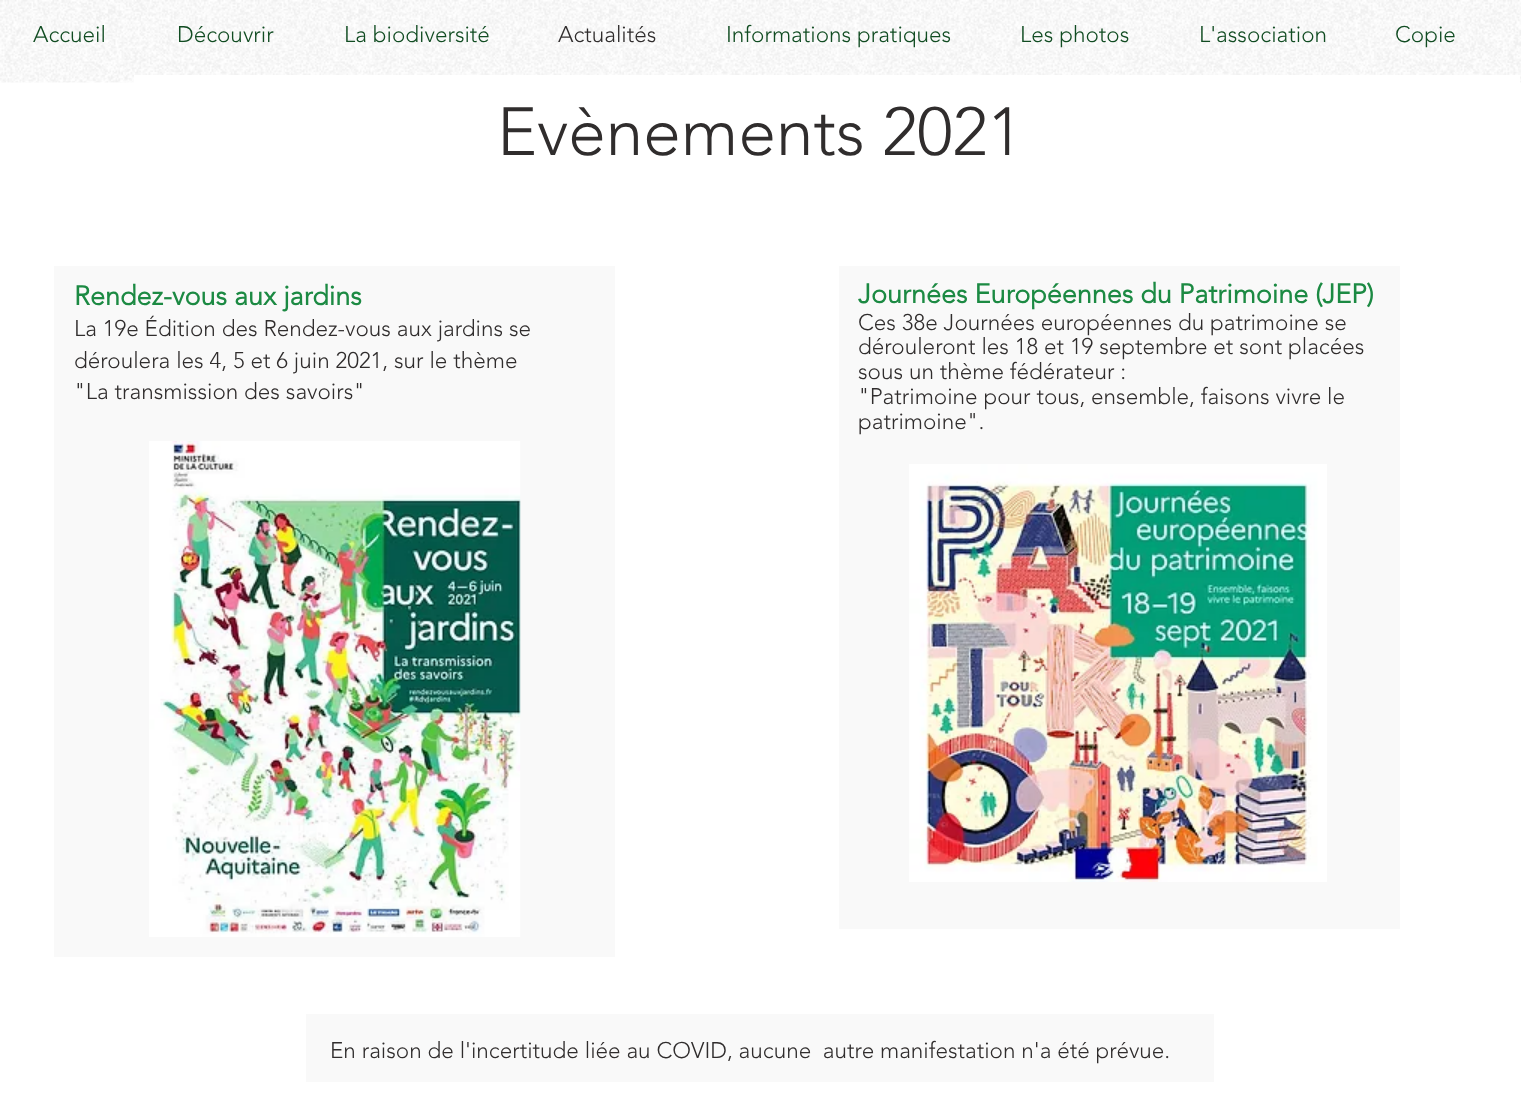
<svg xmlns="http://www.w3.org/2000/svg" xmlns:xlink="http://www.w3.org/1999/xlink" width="1521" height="1104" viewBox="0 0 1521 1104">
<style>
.cls-1{font:300 22.5px 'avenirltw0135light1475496';fill:#114c22}
.cls-2{font:300 22.5px 'avenirltw0135light1475496';fill:#302d2d}
.cls-3{font:300 67.5px 'avenirltw0135light1475496';fill:#302d2d}
.cls-4{font:bold 27px 'avenirltw0135light1475496';fill:#1c8a43}
</style>
<rect width="100%" height="100%" fill="#ffffff"/>
<image xlink:href="image0.png" x="0" y="0" width="1521" height="83"/>
<rect fill="#ffffff" x="134" y="75" width="1386" height="8"/>
<rect fill="#f9f9f9" x="54" y="266" width="561" height="691"/>
<image xlink:href="image1.png" x="149" y="441" width="372" height="496"/>
<rect fill="#f9f9f9" x="839" y="266" width="561" height="663"/>
<image xlink:href="image2.png" x="909" y="464" width="418" height="418"/>
<rect fill="#f9f9f9" x="306" y="1014" width="908" height="68"/>
<text class="cls-1" x="33" y="42">Accueil</text>
<text class="cls-1" x="177" y="42">Découvrir</text>
<text class="cls-1" x="344" y="42">La biodiversité</text>
<text class="cls-2" x="558" y="42">Actualités</text>
<text class="cls-1" x="726" y="42">Informations pratiques</text>
<text class="cls-1" x="1020" y="42">Les photos</text>
<text class="cls-1" x="1199" y="42">L'association</text>
<text class="cls-1" x="1395" y="42">Copie</text>
<text class="cls-3" x="497" y="155">Evènements 2021</text>
<text class="cls-4" x="74" y="305">Rendez-vous aux jardins</text>
<text class="cls-2"><tspan x="74" y="336">La 19e Édition des Rendez-vous aux jardins se</tspan><tspan x="74" y="368">déroulera les 4, 5 et 6 juin 2021, sur le thème</tspan><tspan x="74" y="399">"La transmission des savoirs"</tspan></text>
<text class="cls-4" x="858" y="303">Journées Européennes du Patrimoine (JEP)</text>
<text class="cls-2"><tspan x="858" y="330">Ces 38e Journées européennes du patrimoine se</tspan><tspan x="858" y="354">dérouleront les 18 et 19 septembre et sont placées</tspan><tspan x="858" y="379">sous un thème fédérateur :</tspan><tspan x="858" y="404">"Patrimoine pour tous, ensemble, faisons vivre le</tspan><tspan x="858" y="429">patrimoine".</tspan></text>
<text class="cls-2" xml:space="preserve" x="330" y="1058">En raison de l'incertitude liée au COVID, aucune  autre manifestation n'a été prévue.</text>
</svg>
